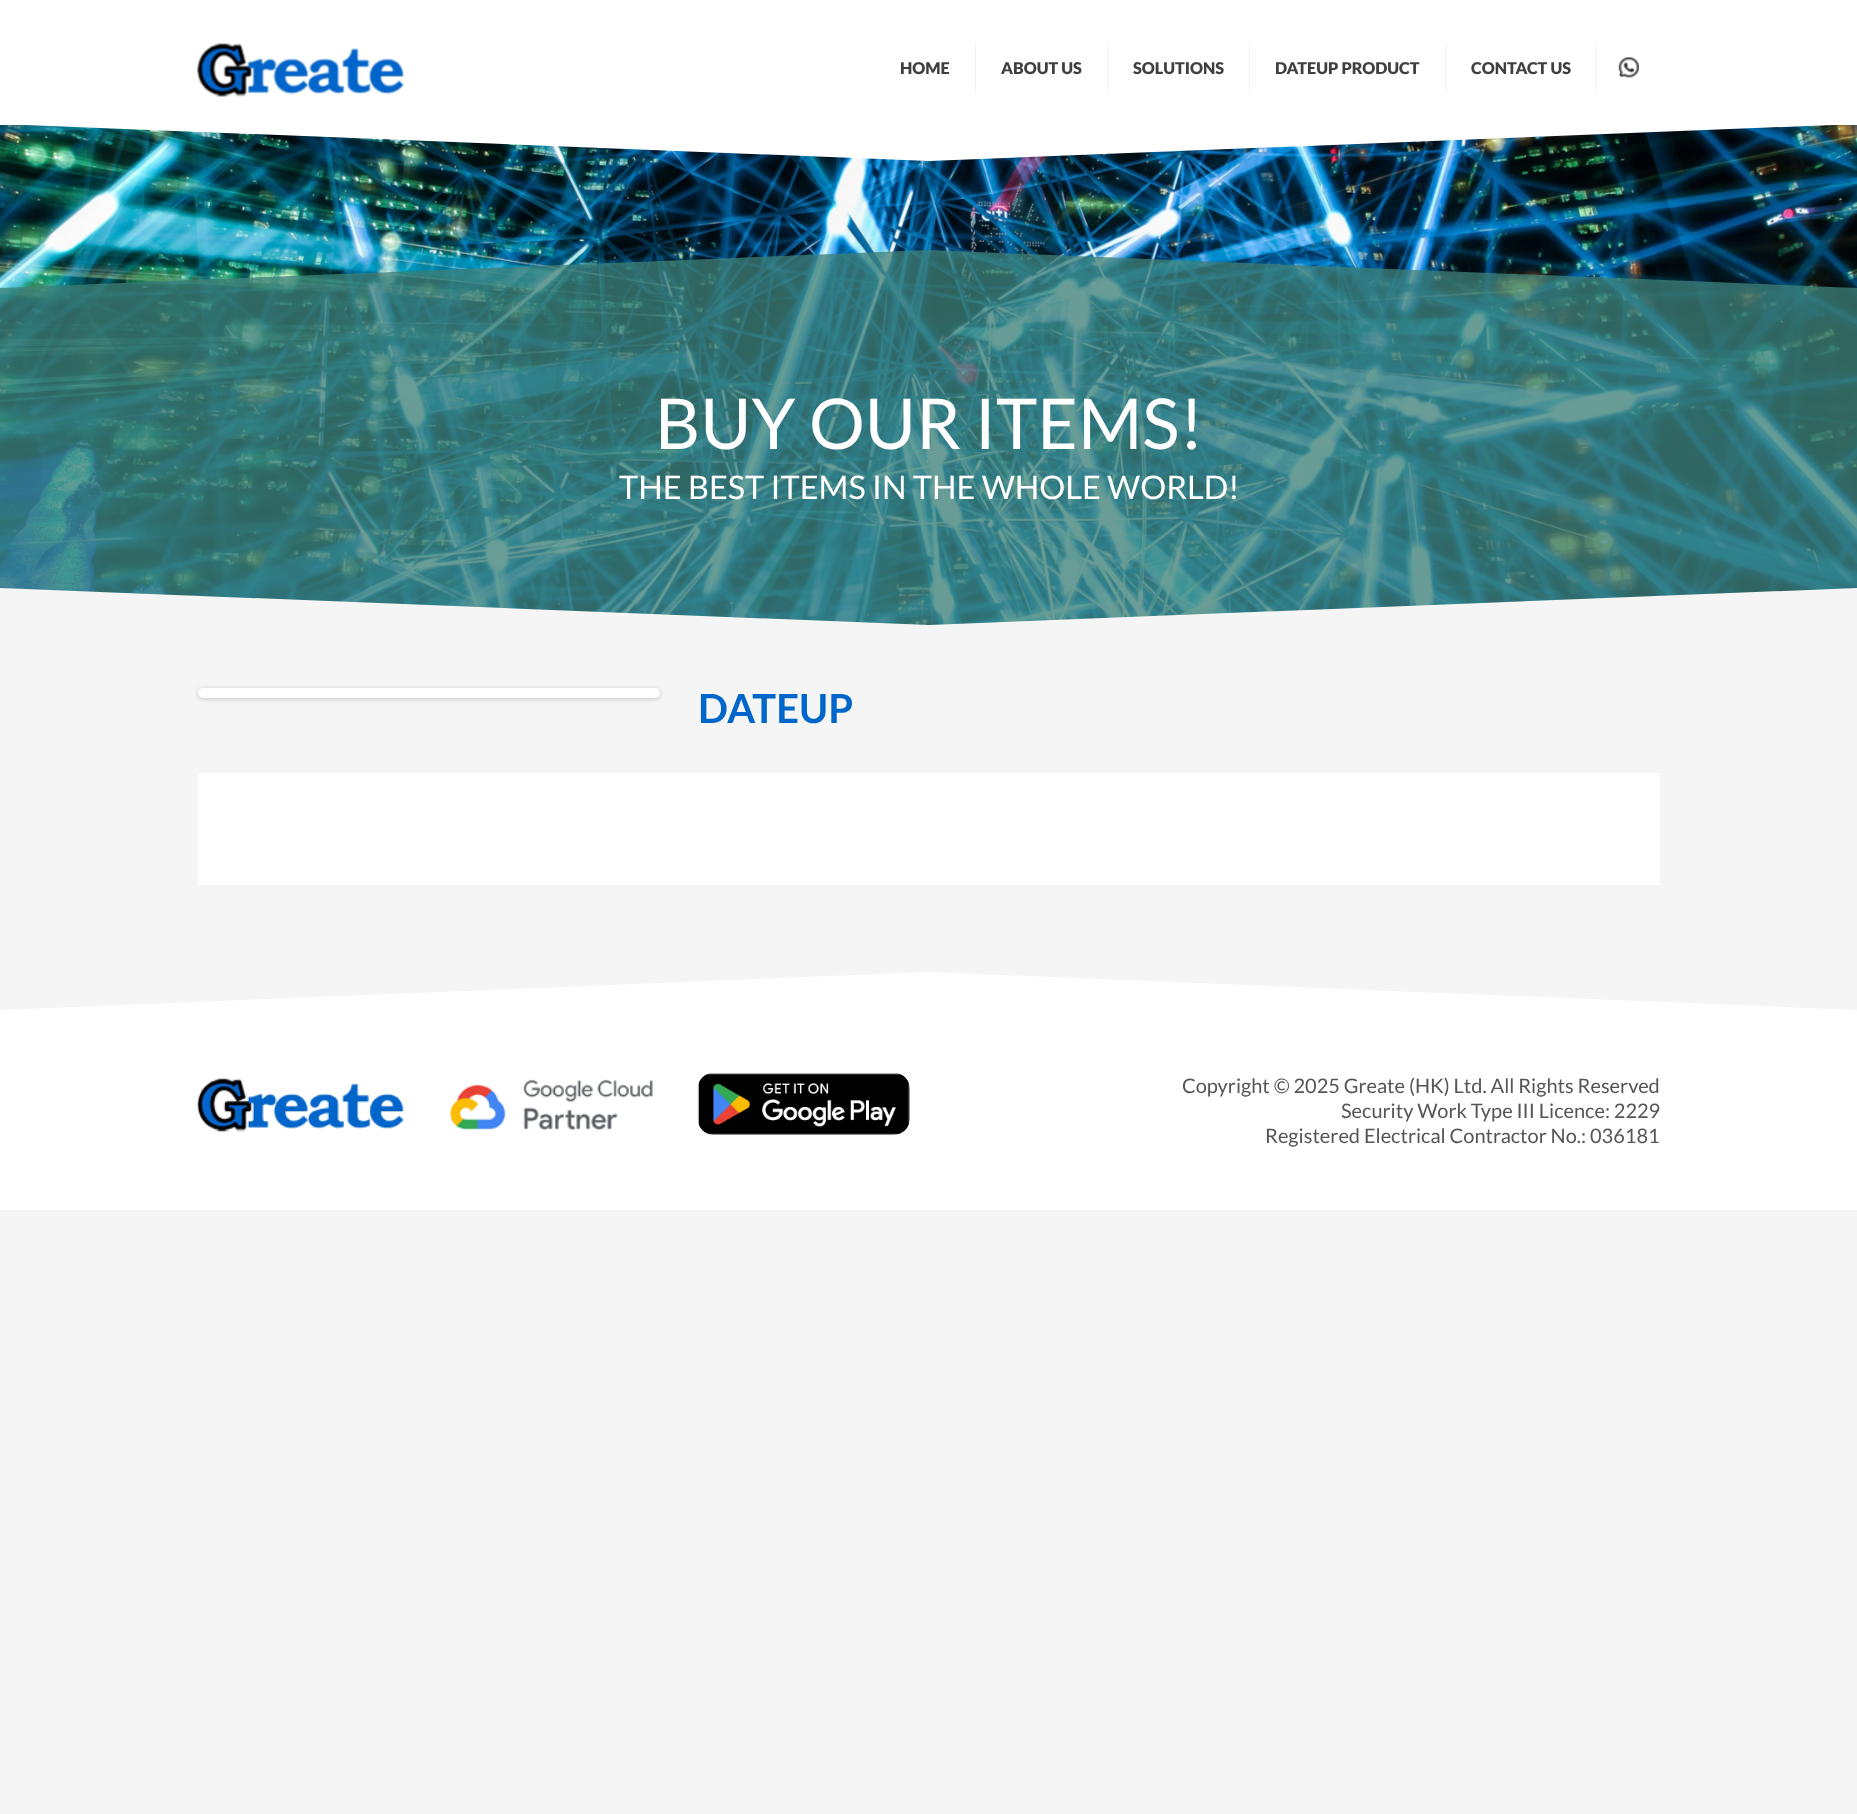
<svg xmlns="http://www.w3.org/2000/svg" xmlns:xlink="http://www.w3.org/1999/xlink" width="1857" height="1814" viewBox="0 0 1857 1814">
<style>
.cls-1{font:900 16.25px Lato;fill:#3f3f3f}
.cls-2{font:70px Lato;fill:#ffffff}
.cls-3{font:32.5px Lato;fill:#ffffff}
.cls-4{font:bold 40px Lato;fill:#0066c9}
.cls-5{font:20px Lato;fill:#555555}
</style>
<rect width="100%" height="100%" fill="#f5f5f5"/>
<rect fill="#ffffff" x="0" y="0" width="1857" height="125"/>
<image xlink:href="image0.png" x="197" y="43" width="208" height="54"/>
<rect fill="#f2f2f2" x="975" y="44" width="1" height="49"/>
<rect fill="#f2f2f2" x="1108" y="44" width="1" height="49"/>
<rect fill="#f2f2f2" x="1249" y="44" width="1" height="49"/>
<rect fill="#f2f2f2" x="1445" y="44" width="1" height="49"/>
<rect fill="#f2f2f2" x="1596" y="44" width="1" height="49"/>
<image xlink:href="image1.png" x="1618" y="57" width="21" height="21"/>
<image xlink:href="image2.png" x="0" y="125" width="1857" height="500"/>
<path fill="#ffffff" d="M0 124H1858L929 161Z"/>
<rect fill="#3d7f78" fill-opacity="0.77" x="0" y="288" width="1857" height="337"/>
<path fill="#3d7f78" fill-opacity="0.77" d="M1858 288H0L929 250Z"/>
<path fill="#f5f5f5" d="M0 625V588L929 625Z"/>
<path fill="#f5f5f5" d="M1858 625H929L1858 588Z"/>
<rect fill="#000000" fill-opacity="0.2" filter="blur(2.5px)" x="198" y="689" width="462" height="10" rx="5"/>
<rect fill="#ffffff" x="198" y="688" width="462" height="10" rx="5"/>
<rect fill="#ffffff" x="198" y="773" width="1462" height="112"/>
<rect fill="#ffffff" x="0" y="1010" width="1857" height="200"/>
<path fill="#ffffff" d="M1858 1010H0L929 972Z"/>
<image xlink:href="image3.png" x="197" y="1078" width="207" height="54"/>
<image xlink:href="image4.png" x="449" y="1079" width="204" height="52"/>
<image xlink:href="image5.png" x="697" y="1072" width="213" height="63"/>
<text class="cls-1" x="900" y="74">HOME</text>
<text class="cls-1" x="1001" y="74">ABOUT US</text>
<text class="cls-1" x="1133" y="74">SOLUTIONS</text>
<text class="cls-1" x="1275" y="74">DATEUP PRODUCT</text>
<text class="cls-1" x="1471" y="74">CONTACT US</text>
<text class="cls-2" x="655" y="449">BUY OUR ITEMS!</text>
<text class="cls-3" x="619" y="499">THE BEST ITEMS IN THE WHOLE WORLD!</text>
<text class="cls-4" x="698" y="723">DATEUP</text>
<text class="cls-5" x="1182" y="1093">Copyright © 2025 Greate (HK) Ltd. All Rights Reserved</text>
<text class="cls-5" x="1341" y="1118">Security Work Type III Licence: 2229</text>
<text class="cls-5" x="1265" y="1143">Registered Electrical Contractor No.: 036181</text>
</svg>
